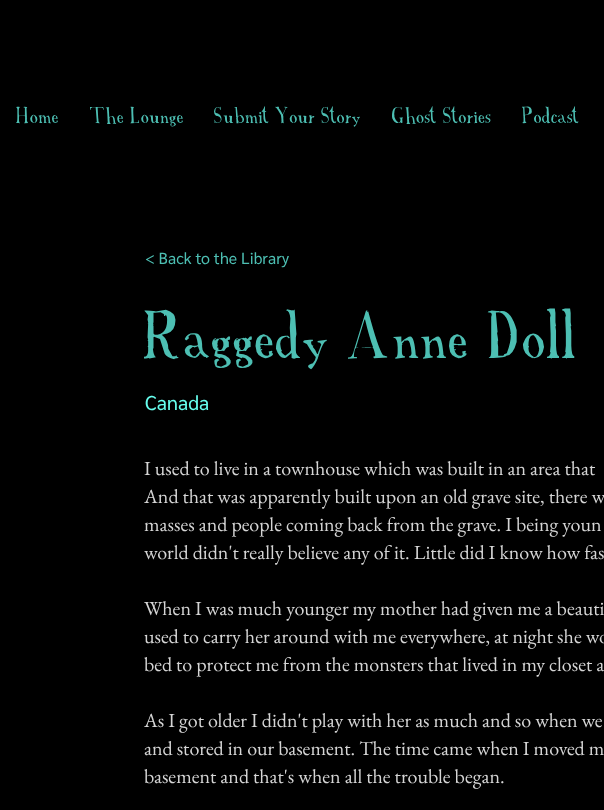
<svg xmlns="http://www.w3.org/2000/svg" xmlns:xlink="http://www.w3.org/1999/xlink" width="604" height="810" viewBox="0 0 604 810">
<style>
.cls-1{font:22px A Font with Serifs;fill:#4dbfb3}
.cls-2{font:16px Sarabun;fill:#4dbfb3}
.cls-3{font:65px A Font with Serifs;fill:#4dbfb3}
.cls-4{font:20px Sarabun;fill:#67ffef}
.cls-5{font:20px EB Garamond;fill:#d5d5d5}
</style>
<rect width="100%" height="100%" fill="#000000"/>
<text class="cls-1" x="16" y="123">Home</text>
<text class="cls-1" x="90" y="123">The Lounge</text>
<text class="cls-1" x="214" y="123">Submit Your Story</text>
<text class="cls-1" x="392" y="123">Ghost Stories</text>
<text class="cls-1" x="522" y="123">Podcast</text>
<text class="cls-2" x="145" y="264">&lt; Back to the Library</text>
<text class="cls-3" x="144" y="358">Raggedy Anne Doll</text>
<text class="cls-4" x="145" y="410">Canada</text>
<text class="cls-5"><tspan x="144" y="475">I used to live in a townhouse which was built in an area that</tspan><tspan x="144" y="503">And that was apparently built upon an old grave site, there w</tspan><tspan x="144" y="531">masses and people coming back from the grave. I being youn</tspan><tspan x="144" y="559">world didn't really believe any of it. Little did I know how fas</tspan></text>
<text class="cls-5"><tspan x="144" y="615">When I was much younger my mother had given me a beauti</tspan><tspan x="144" y="643">used to carry her around with me everywhere, at night she wo</tspan><tspan x="144" y="671">bed to protect me from the monsters that lived in my closet a</tspan></text>
<text class="cls-5"><tspan x="144" y="727">As I got older I didn't play with her as much and so when we</tspan><tspan x="144" y="755">and stored in our basement. The time came when I moved m</tspan><tspan x="144" y="783">basement and that's when all the trouble began.</tspan></text>
</svg>
